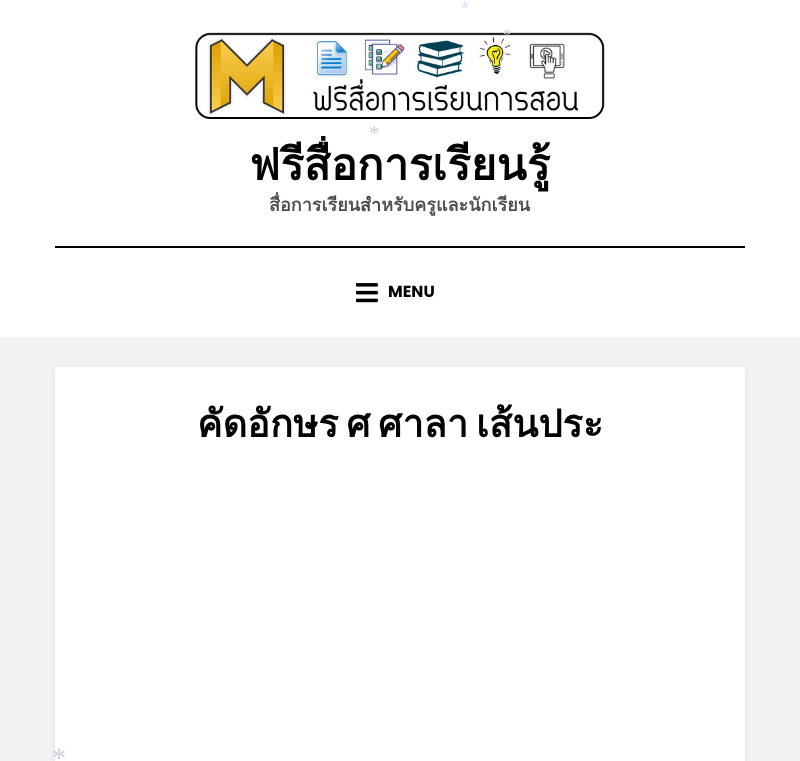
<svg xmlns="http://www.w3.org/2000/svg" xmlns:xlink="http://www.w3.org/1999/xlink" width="800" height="761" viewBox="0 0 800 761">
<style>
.cls-1{font:20px Liberation Sans;fill:#ddddff}
.cls-2{font:16px Liberation Serif;fill:#ccccdd}
.cls-3{font:21px Liberation Serif;fill:#ccccdd}
.cls-4{font:28px Liberation Serif;fill:#ccccdd}
.cls-5{font:bold 44px Loma;fill:#020202}
.cls-6{font:bold 18px Loma;fill:#4d4d4d}
.cls-7{font:bold 16px Poppins;fill:#020202}
.cls-8{font:bold 38px Loma;fill:#020202}
</style>
<defs>
<clipPath id="clip1"><rect x="193" y="136" width="414" height="80"/></clipPath>
</defs>
<rect width="100%" height="100%" fill="#f2f2f2"/>
<rect fill="#ffffff" x="0" y="0" width="800" height="337"/>
<image xlink:href="image0.png" x="195" y="32" width="410" height="88"/>
<rect fill="#020202" x="55" y="246" width="690" height="2"/>
<image xlink:href="image1.png" x="356" y="283" width="22" height="20"/>
<rect fill="#000001" fill-opacity="0.05" filter="blur(2.5px)" x="55" y="368" width="690" height="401"/>
<rect fill="#ffffff" x="55" y="367" width="690" height="394"/>
<text class="cls-1" x="461" y="15">*</text>
<text class="cls-2" x="503" y="40">*</text>
<text class="cls-3" x="369" y="140">*</text>
<text class="cls-4" x="52" y="767">*</text>
<g clip-path="url(#clip1)">
<text class="cls-5" x="249" y="180">ฟรีสื่อการเรียนรู้</text>
</g>
<text class="cls-6" x="269" y="211">สื่อการเรียนสำหรับครูและนักเรียน</text>
<text class="cls-7" x="388" y="297">MENU</text>
<text class="cls-8" x="197" y="437" word-spacing="-5">คัดอักษร ศ ศาลา เส้นประ</text>
</svg>
